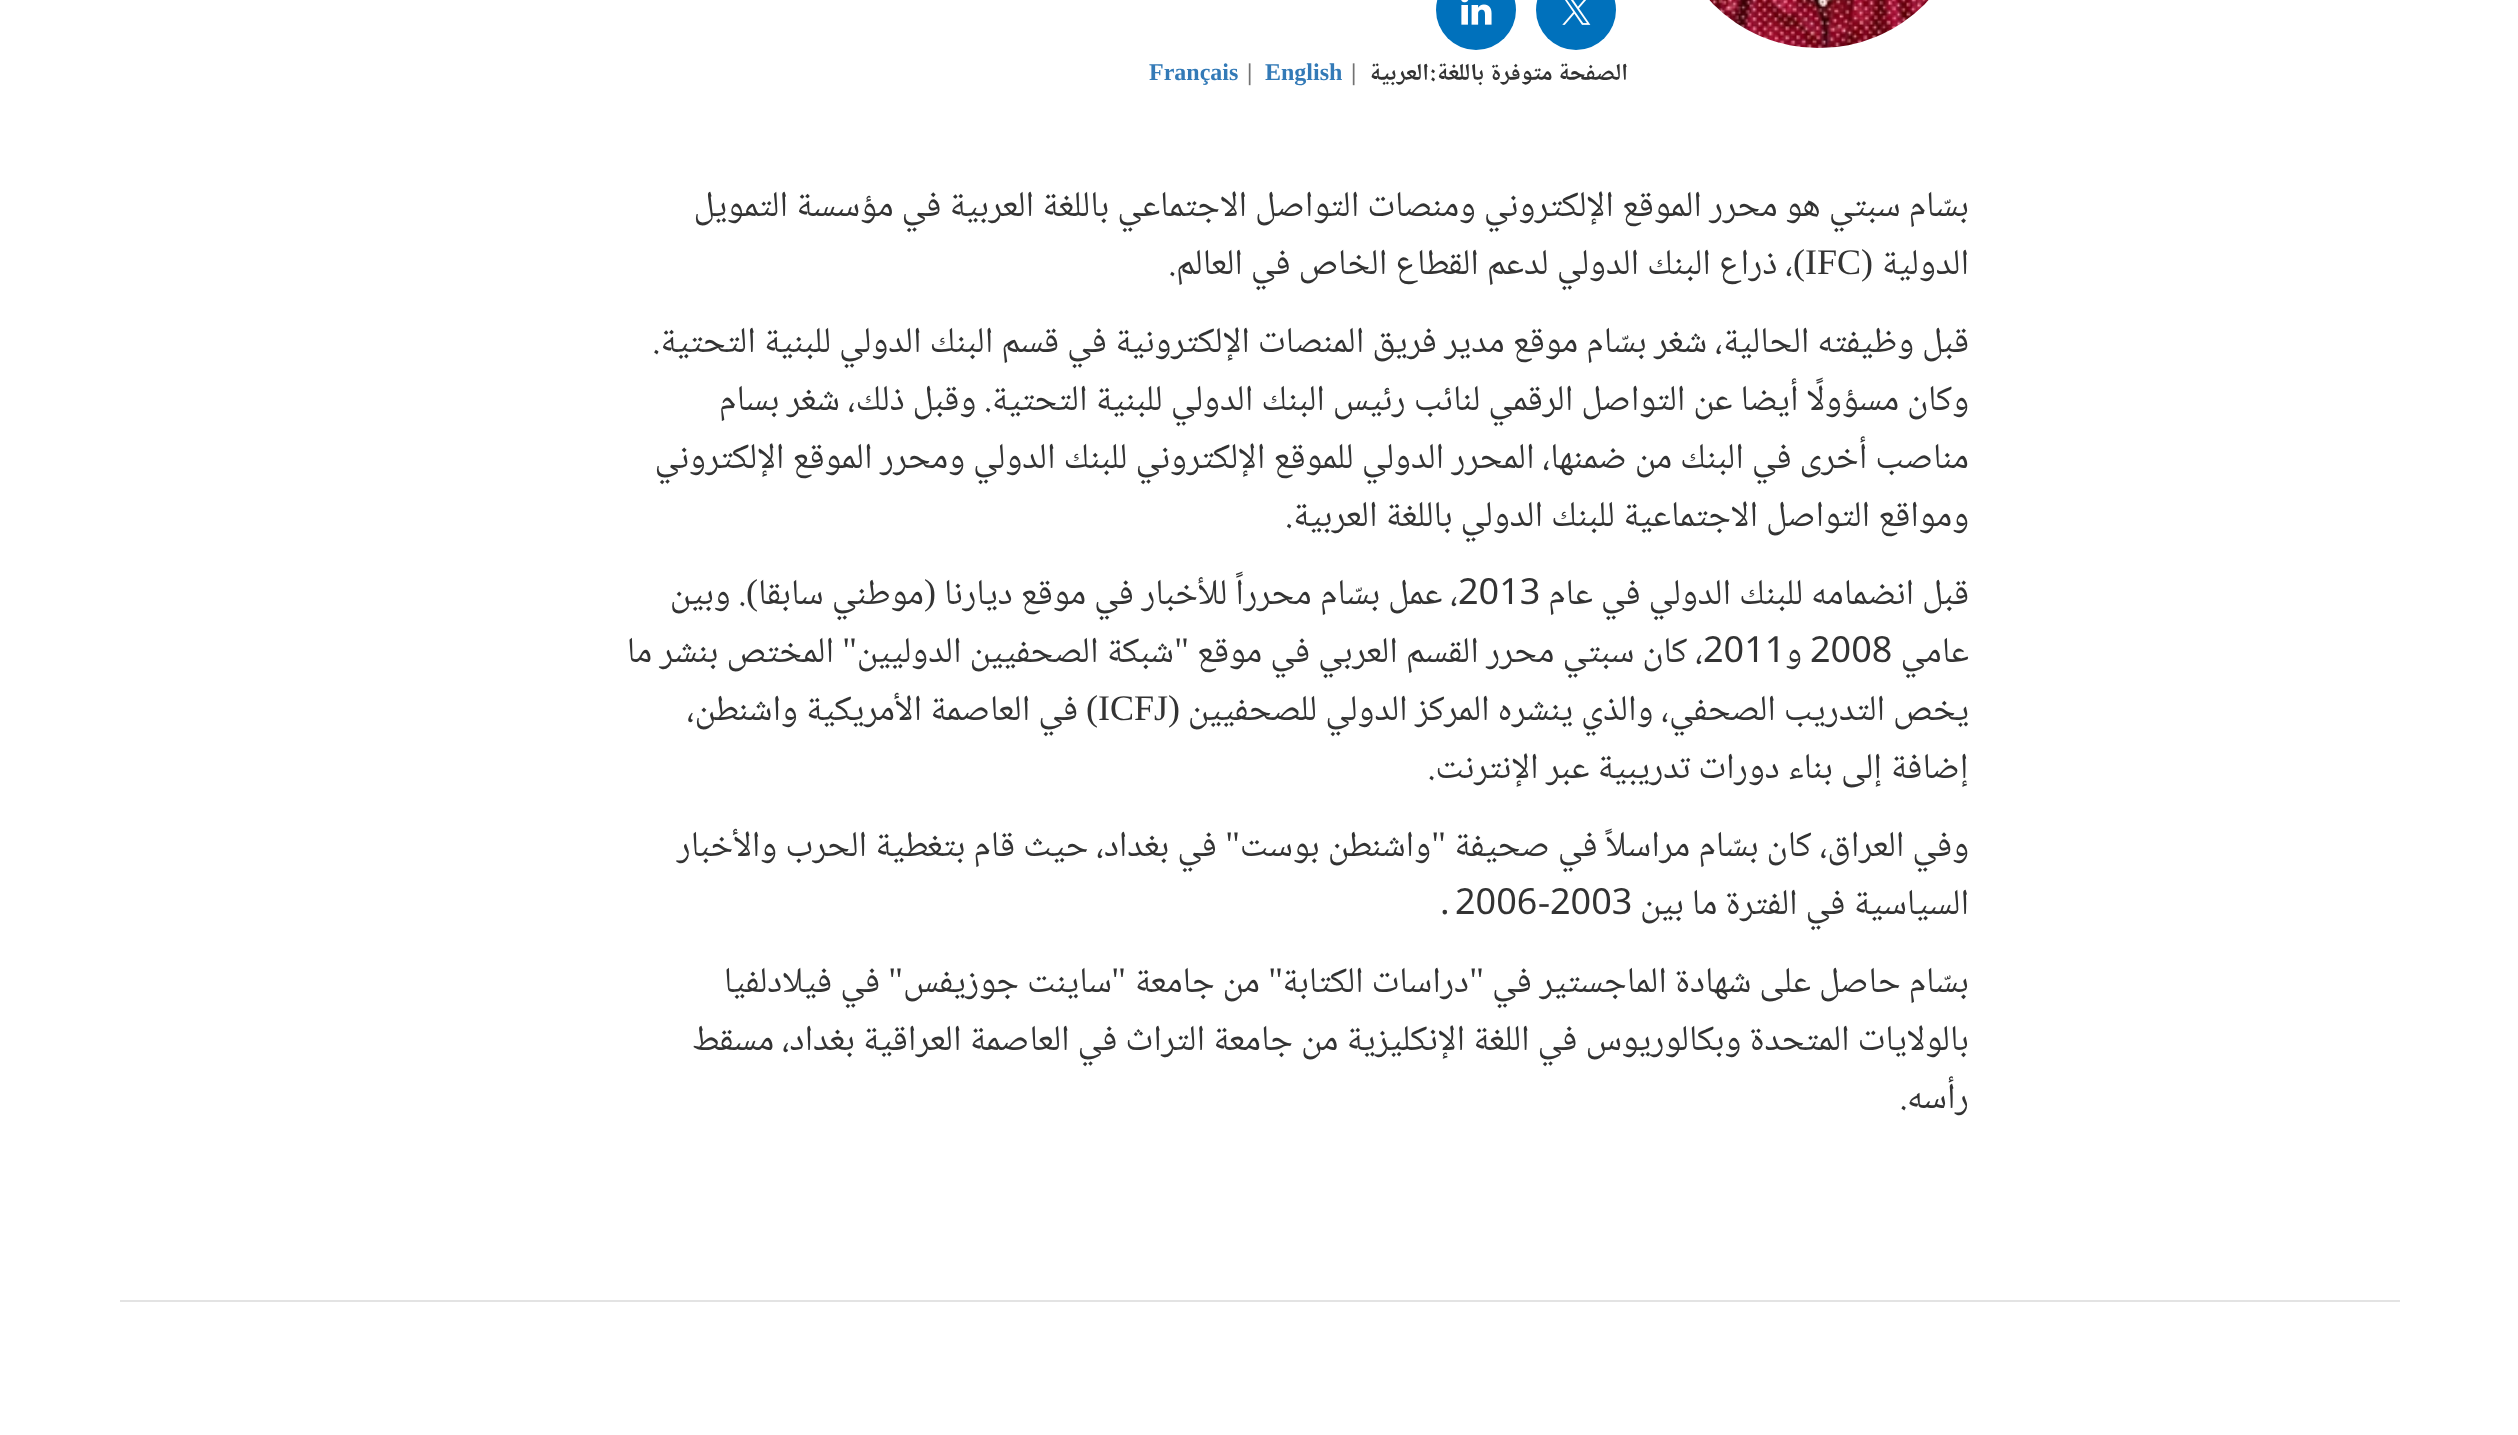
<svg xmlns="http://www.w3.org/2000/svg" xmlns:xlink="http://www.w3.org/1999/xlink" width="2518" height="1435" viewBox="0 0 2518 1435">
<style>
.cls-1{font:bold 24px Noto Naskh Arabic;direction:rtl;fill:#333333}
.cls-2{font:bold 24px Liberation Serif;fill:#727272}
.cls-3{font:bold 24px Liberation Serif;fill:#337ab7}
.cls-4{font:36px Noto Naskh Arabic;direction:rtl;fill:#333333}
.cls-5{font:36px Liberation Serif;direction:rtl;fill:#333333}
.cls-6{font:36px Liberation Serif;fill:#333333}
.cls-7{font:36px Noto Naskh Arabic;fill:#333333}
</style>
<rect width="100%" height="100%" fill="#ffffff"/>
<image xlink:href="image0.png" x="1709" y="0" width="220" height="48"/>
<circle fill="#0071bc" cx="1576" cy="10" r="40"/>
<image xlink:href="image1.png" x="1562" y="0" width="29" height="25"/>
<circle fill="#0071bc" cx="1476" cy="10" r="40"/>
<image xlink:href="image2.png" x="1461" y="0" width="31" height="25"/>
<rect fill="#e3e3e3" x="120" y="1300" width="2280" height="2"/>
<text class="cls-1" x="1628" y="80">الصفحة متوفرة باللغة:</text>
<text class="cls-1" x="1429" y="80">العربية</text>
<text class="cls-2" x="1351" y="80">|</text>
<text class="cls-3" x="1265" y="80">English</text>
<text class="cls-2" x="1247" y="80">|</text>
<text class="cls-3" x="1149" y="80">Français</text>
<text class="cls-4"><tspan x="1969" y="216">بسّام سبتي هو محرر الموقع الإلكتروني ومنصات التواصل الاجتماعي باللغة العربية في مؤسسة التمويل</tspan><tspan x="1969" y="274">الدولية</tspan></text>
<text class="cls-5" x="1873" y="274">(</text>
<text class="cls-6" x="1805" y="274">IFC</text>
<text class="cls-5" x="1805" y="274">)</text>
<text class="cls-4" x="1793" y="274">، ذراع البنك الدولي لدعم القطاع الخاص في العالم.</text>
<text class="cls-4"><tspan x="1969" y="352">قبل وظيفته الحالية، شغر بسّام موقع مدير فريق المنصات الإلكترونية في قسم البنك الدولي للبنية التحتية.</tspan><tspan x="1969" y="410">وكان مسؤولًا أيضا عن التواصل الرقمي لنائب رئيس البنك الدولي للبنية التحتية. وقبل ذلك، شغر بسام</tspan><tspan x="1969" y="468">مناصب أخرى في البنك من ضمنها، المحرر الدولي للموقع الإلكتروني للبنك الدولي ومحرر الموقع الإلكتروني</tspan><tspan x="1969" y="526">ومواقع التواصل الاجتماعية للبنك الدولي باللغة العربية.</tspan></text>
<text class="cls-4" x="1969" y="604">قبل انضمامه للبنك الدولي في عام</text>
<text class="cls-7" x="1458" y="604">2013</text>
<text class="cls-4" x="1458" y="604">، عمل بسّام محرراً للأخبار في موقع ديارنا</text>
<text class="cls-5" x="936" y="604">(</text>
<text class="cls-4" x="924" y="604">موطني سابقا</text>
<text class="cls-5" x="758" y="604">)</text>
<text class="cls-4" x="746" y="604">. وبين</text>
<text class="cls-4" x="1969" y="662">عامي</text>
<text class="cls-7" x="1810" y="662">2008</text>
<text class="cls-7" x="1703" y="662">2011</text>
<text class="cls-4" x="1703" y="662">، كان سبتي محرر القسم العربي في موقع</text>
<text class="cls-5" x="1189" y="662">"</text>
<text class="cls-4" x="1174" y="662">شبكة الصحفيين الدوليين</text>
<text class="cls-5" x="857" y="662">"</text>
<text class="cls-4" x="834" y="662">المختص بنشر ما</text>
<text class="cls-4" x="1802" y="662">و</text>
<text class="cls-4" x="1969" y="720">يخص التدريب الصحفي، والذي ينشره المركز الدولي للصحفيين</text>
<text class="cls-5" x="1180" y="720">(</text>
<text class="cls-6" x="1098" y="720">ICFJ</text>
<text class="cls-5" x="1098" y="720">)</text>
<text class="cls-4" x="1078" y="720">في العاصمة الأمريكية واشنطن،</text>
<text class="cls-4" x="1969" y="778">إضافة إلى بناء دورات تدريبية عبر الإنترنت.</text>
<text class="cls-4" x="1969" y="856">وفي العراق، كان بسّام مراسلاً في صحيفة</text>
<text class="cls-5" x="1446" y="856">"</text>
<text class="cls-4" x="1431" y="856">واشنطن بوست</text>
<text class="cls-5" x="1240" y="856">"</text>
<text class="cls-4" x="1217" y="856">في بغداد، حيث قام بتغطية الحرب والأخبار</text>
<text class="cls-4" x="1969" y="914">السياسية في الفترة ما بين</text>
<text class="cls-7" x="1550" y="914">2003</text>
<text class="cls-6" x="1538" y="914">-</text>
<text class="cls-7" x="1455" y="914">2006</text>
<text class="cls-7" x="1440" y="914">.</text>
<text class="cls-4" x="1969" y="992">بسّام حاصل على شهادة الماجستير في</text>
<text class="cls-5" x="1484" y="992">"</text>
<text class="cls-4" x="1469" y="992">دراسات الكتابة</text>
<text class="cls-5" x="1283" y="992">"</text>
<text class="cls-4" x="1260" y="992">من جامعة</text>
<text class="cls-5" x="1126" y="992">"</text>
<text class="cls-4" x="1112" y="992">ساينت جوزيفس</text>
<text class="cls-5" x="903" y="992">"</text>
<text class="cls-4" x="880" y="992">في فيلادلفيا</text>
<text class="cls-4"><tspan x="1969" y="1050">بالولايات المتحدة وبكالوريوس في اللغة الإنكليزية من جامعة التراث في العاصمة العراقية بغداد، مسقط</tspan><tspan x="1969" y="1108">رأسه.</tspan></text>
</svg>
